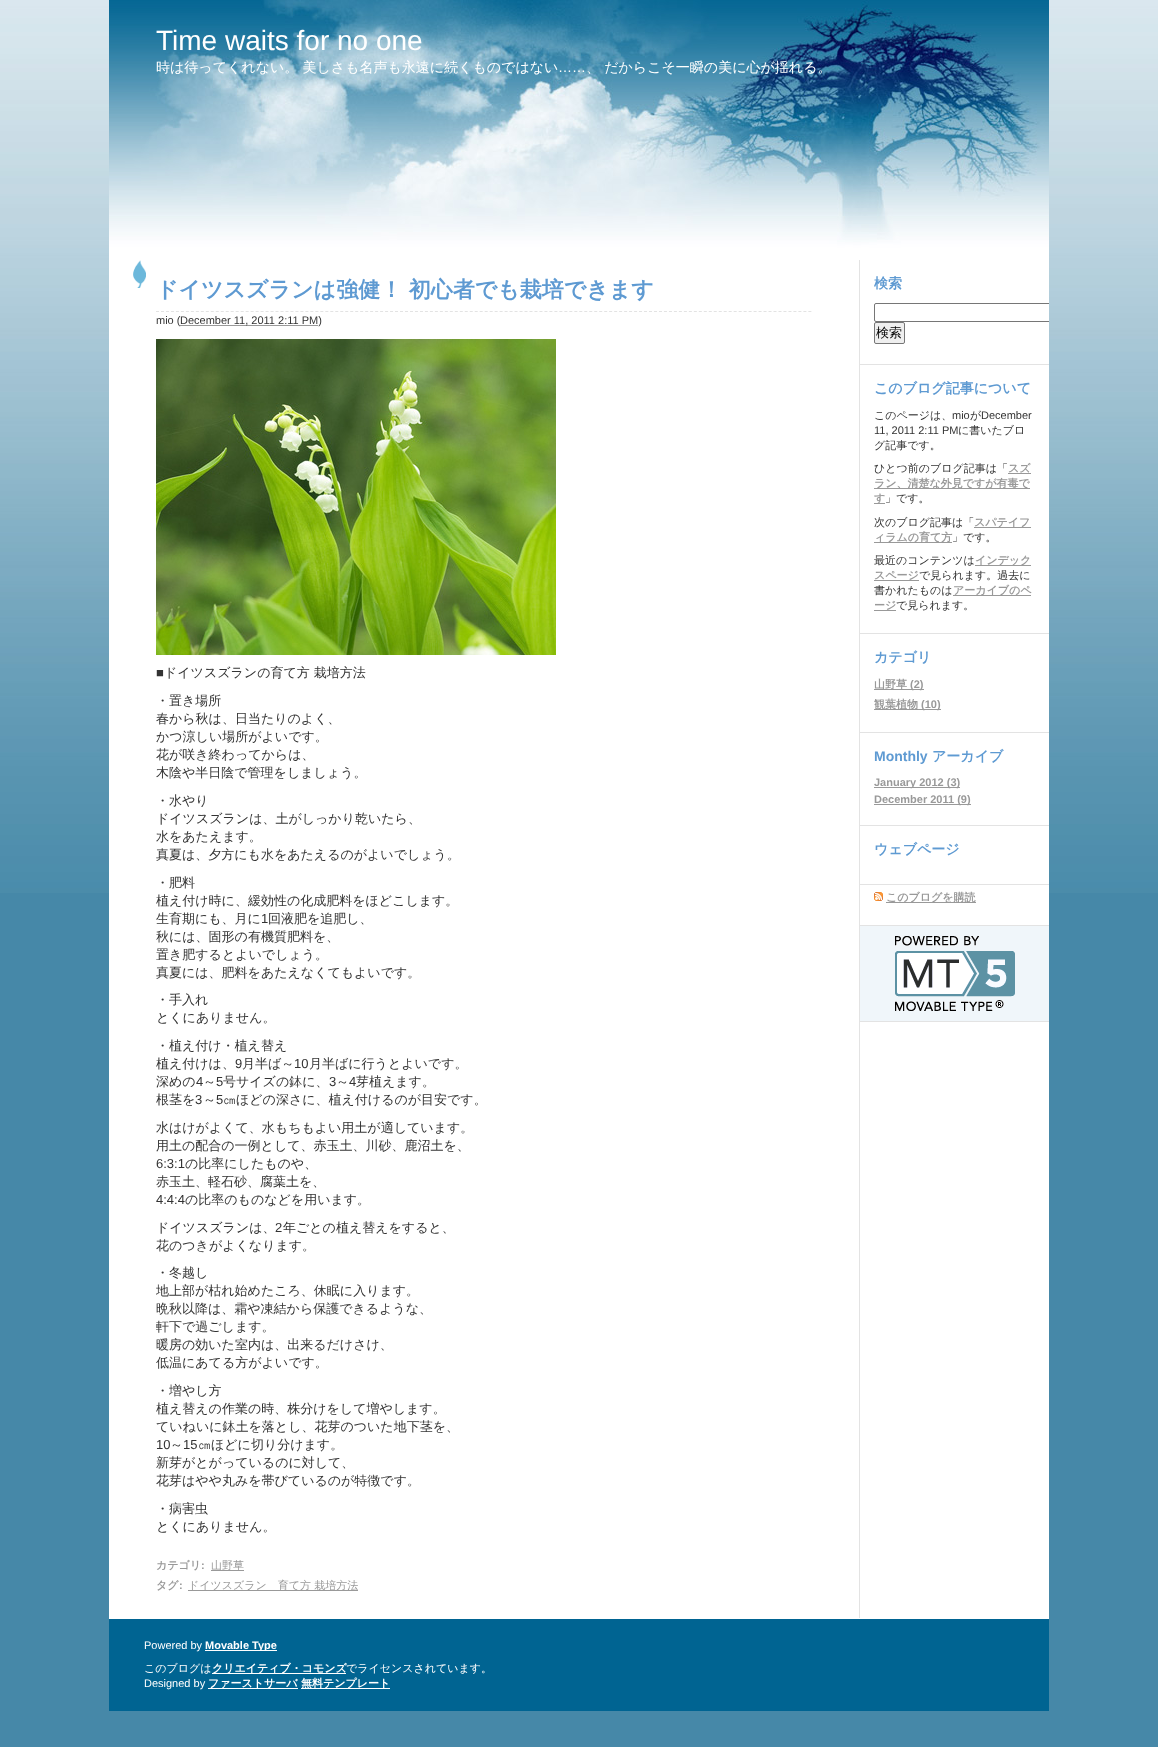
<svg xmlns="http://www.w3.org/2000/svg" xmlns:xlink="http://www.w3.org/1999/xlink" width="1158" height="1747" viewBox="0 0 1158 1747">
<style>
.cls-1{font:28px Liberation Sans;fill:#ffffff}
.cls-2{font:500 14px WenQuanYi Zen Hei;fill:#ffffff}
.cls-3{font:14px Liberation Sans;fill:#ffffff}
.cls-4{font:bold 22px WenQuanYi Zen Hei;fill:#5e9ad2}
.cls-5{font:11px Liberation Sans;fill:#333333}
.cls-6{font:13px Liberation Sans;fill:#333333}
.cls-7{font:500 13px WenQuanYi Zen Hei;fill:#333333}
.cls-8{font:bold 11px WenQuanYi Zen Hei;fill:#999999}
.cls-9{font:bold 11px Liberation Sans;fill:#999999}
.cls-10{font:500 11px WenQuanYi Zen Hei;fill:#999999}
.cls-11{font:bold 14px WenQuanYi Zen Hei;fill:#5e9ad2}
.cls-12{font:500 13px WenQuanYi Zen Hei;fill:#000000}
.cls-13{font:500 11px WenQuanYi Zen Hei;fill:#333333}
.cls-14{font:bold 14px Liberation Sans;fill:#5e9ad2}
.cls-15{font:11px Liberation Sans;fill:#ffffff}
.cls-16{font:bold 11px Liberation Sans;fill:#ffffff}
.cls-17{font:500 11px WenQuanYi Zen Hei;fill:#ffffff}
.cls-18{font:bold 11px WenQuanYi Zen Hei;fill:#ffffff}
</style>
<defs>
<clipPath id="clip1"><rect x="859" y="260" width="190" height="104"/></clipPath>
<clipPath id="clip2"><rect x="129" y="1639" width="900" height="12"/></clipPath>
</defs>
<rect width="100%" height="100%" fill="#4688a8"/>
<image xlink:href="image0.png" x="0" y="0" width="1158" height="893"/>
<rect fill="#ffffff" x="109" y="250" width="940" height="1369"/>
<image xlink:href="image1.png" x="109" y="0" width="940" height="250"/>
<rect fill="#e3e3e3" x="859" y="260" width="1" height="1358"/>
<image xlink:href="image2.png" x="133" y="260" width="13" height="28"/>
<path fill="none" stroke="#e3e3e3" stroke-dasharray="3 1.98" d="M156 311.5H812"/>
<path fill="none" stroke="#333333" stroke-dasharray="1 1" d="M180.5 325.5H278.5"/>
<path fill="none" stroke="#333333" stroke-dasharray="1 1" d="M278.5 325.5H318.5"/>
<image xlink:href="image3.png" x="156" y="339" width="400" height="316"/>
<rect fill="#999999" x="211" y="1570" width="33" height="1"/>
<rect fill="#999999" x="188" y="1590" width="170" height="1"/>
<rect fill="#e3e3e3" x="859" y="364" width="190" height="1"/>
<g clip-path="url(#clip1)">
<rect fill="none" stroke="#767676" x="874.5" y="303.5" width="180" height="18" rx="1.5"/>
</g>
<rect fill="#efefef" stroke="#767676" x="874.5" y="322.5" width="30" height="21" rx="1.5"/>
<rect fill="#e3e3e3" x="859" y="633" width="190" height="1"/>
<rect fill="#999999" x="1008" y="473" width="23" height="1"/>
<rect fill="#999999" x="874" y="488" width="156" height="1"/>
<rect fill="#999999" x="874" y="503" width="11" height="1"/>
<rect fill="#999999" x="974" y="527" width="57" height="1"/>
<rect fill="#999999" x="874" y="542" width="78" height="1"/>
<rect fill="#999999" x="975" y="565" width="56" height="1"/>
<rect fill="#999999" x="874" y="580" width="45" height="1"/>
<rect fill="#999999" x="953" y="595" width="78" height="1"/>
<rect fill="#999999" x="874" y="610" width="22" height="1"/>
<rect fill="#e3e3e3" x="859" y="732" width="190" height="1"/>
<rect fill="#999999" x="874" y="689" width="50" height="1"/>
<rect fill="#999999" x="874" y="709" width="67" height="1"/>
<rect fill="#e3e3e3" x="859" y="825" width="190" height="1"/>
<rect fill="#999999" x="874" y="787" width="86" height="1"/>
<rect fill="#999999" x="874" y="804" width="97" height="1"/>
<rect fill="#e3e3e3" x="859" y="884" width="190" height="1"/>
<rect fill="#e3e3e3" x="859" y="925" width="190" height="1"/>
<image xlink:href="image4.png" x="874" y="892" width="9" height="9"/>
<rect fill="#999999" x="886" y="902" width="90" height="1"/>
<rect fill="#e3e3e3" x="859" y="1021" width="190" height="1"/>
<rect fill="#f0f6fa" x="860" y="926" width="189" height="95"/>
<image xlink:href="image5.png" x="895" y="936" width="120" height="75"/>
<rect fill="#006492" x="109" y="1619" width="940" height="92"/>
<rect fill="#ffffff" x="205" y="1650" width="72" height="1"/>
<rect fill="#ffffff" x="212" y="1673" width="134" height="1"/>
<rect fill="#ffffff" x="208" y="1688" width="90" height="1"/>
<rect fill="#ffffff" x="301" y="1688" width="89" height="1"/>
<text class="cls-1" x="156" y="50">Time waits for no one</text>
<text class="cls-2" x="156" y="72">時は待ってくれない。 美しさも名声も永遠に続くものではない</text>
<text class="cls-3" x="558" y="72">……</text>
<text class="cls-2" x="586" y="72">、 だからこそ一瞬の美に心が揺れる。</text>
<text class="cls-4" x="156" y="297">ドイツスズランは強健！ 初心者でも栽培できます</text>
<text class="cls-5" x="156" y="324">mio (</text>
<text class="cls-5" x="180" y="324">December 11, 2011 2:11 PM)</text>
<text class="cls-6" x="156" y="677">■</text>
<text class="cls-7" x="164" y="677">ドイツスズランの育て方 栽培方法</text>
<text class="cls-7"><tspan x="156" y="705">・置き場所</tspan><tspan x="156" y="723">春から秋は、日当たりのよく、</tspan><tspan x="156" y="741">かつ涼しい場所がよいです。</tspan><tspan x="156" y="759">花が咲き終わってからは、</tspan><tspan x="156" y="777">木陰や半日陰で管理をしましょう。</tspan></text>
<text class="cls-7"><tspan x="156" y="805">・水やり</tspan><tspan x="156" y="823">ドイツスズランは、土がしっかり乾いたら、</tspan><tspan x="156" y="841">水をあたえます。</tspan><tspan x="156" y="859">真夏は、夕方にも水をあたえるのがよいでしょう。</tspan></text>
<text class="cls-7"><tspan x="156" y="887">・肥料</tspan><tspan x="156" y="905">植え付け時に、緩効性の化成肥料をほどこします。</tspan><tspan x="156" y="923">生育期にも、月に</tspan></text>
<text class="cls-6" x="261" y="923">1</text>
<text class="cls-7" x="268" y="923">回液肥を追肥し、</text>
<text class="cls-7"><tspan x="156" y="941">秋には、固形の有機質肥料を、</tspan><tspan x="156" y="959">置き肥するとよいでしょう。</tspan><tspan x="156" y="977">真夏には、肥料をあたえなくてもよいです。</tspan></text>
<text class="cls-7"><tspan x="156" y="1004">・手入れ</tspan><tspan x="156" y="1022">とくにありません。</tspan></text>
<text class="cls-7"><tspan x="156" y="1050">・植え付け・植え替え</tspan><tspan x="156" y="1068">植え付けは、</tspan></text>
<text class="cls-6" x="235" y="1068">9</text>
<text class="cls-7" x="242" y="1068">月半ば～</text>
<text class="cls-6" x="294" y="1068">10</text>
<text class="cls-7" x="309" y="1068">月半ばに行うとよいです。</text>
<text class="cls-7" x="156" y="1086">深めの</text>
<text class="cls-6" x="196" y="1086">4</text>
<text class="cls-7" x="203" y="1086">～</text>
<text class="cls-6" x="216" y="1086">5</text>
<text class="cls-7" x="223" y="1086">号サイズの鉢に、</text>
<text class="cls-6" x="329" y="1086">3</text>
<text class="cls-7" x="336" y="1086">～</text>
<text class="cls-6" x="349" y="1086">4</text>
<text class="cls-7" x="356" y="1086">芽植えます。</text>
<text class="cls-7" x="156" y="1104">根茎を</text>
<text class="cls-6" x="195" y="1104">3</text>
<text class="cls-7" x="203" y="1104">～</text>
<text class="cls-6" x="216" y="1104">5</text>
<text class="cls-7" x="223" y="1104">㎝ほどの深さに、植え付けるのが目安です。</text>
<text class="cls-7"><tspan x="156" y="1132">水はけがよくて、水もちもよい用土が適しています。</tspan><tspan x="156" y="1150">用土の配合の一例として、赤玉土、川砂、鹿沼土を、</tspan></text>
<text class="cls-6" x="156" y="1168">6:3:1</text>
<text class="cls-7" x="185" y="1168">の比率にしたものや、</text>
<text class="cls-7" x="156" y="1186">赤玉土、軽石砂、腐葉土を、</text>
<text class="cls-6" x="156" y="1204">4:4:4</text>
<text class="cls-7" x="185" y="1204">の比率のものなどを用います。</text>
<text class="cls-7" x="156" y="1232">ドイツスズランは、</text>
<text class="cls-6" x="275" y="1232">2</text>
<text class="cls-7" x="283" y="1232">年ごとの植え替えをすると、</text>
<text class="cls-7" x="156" y="1250">花のつきがよくなります。</text>
<text class="cls-7"><tspan x="156" y="1277">・冬越し</tspan><tspan x="156" y="1295">地上部が枯れ始めたころ、休眠に入ります。</tspan><tspan x="156" y="1313">晩秋以降は、霜や凍結から保護できるような、</tspan><tspan x="156" y="1331">軒下で過ごします。</tspan><tspan x="156" y="1349">暖房の効いた室内は、出来るだけさけ、</tspan><tspan x="156" y="1367">低温にあてる方がよいです。</tspan></text>
<text class="cls-7"><tspan x="156" y="1395">・増やし方</tspan><tspan x="156" y="1413">植え替えの作業の時、株分けをして増やします。</tspan><tspan x="156" y="1431">ていねいに鉢土を落とし、花芽のついた地下茎を、</tspan></text>
<text class="cls-6" x="156" y="1449">10</text>
<text class="cls-7" x="170" y="1449">～</text>
<text class="cls-6" x="183" y="1449">15</text>
<text class="cls-7" x="198" y="1449">㎝ほどに切り分けます。</text>
<text class="cls-7"><tspan x="156" y="1467">新芽がとがっているのに対して、</tspan><tspan x="156" y="1485">花芽はやや丸みを帯びているのが特徴です。</tspan></text>
<text class="cls-7"><tspan x="156" y="1513">・病害虫</tspan><tspan x="156" y="1531">とくにありません。</tspan></text>
<text class="cls-8" x="156" y="1569">カテゴリ</text>
<text class="cls-9" x="201" y="1569">:</text>
<text class="cls-10" x="211" y="1569">山野草</text>
<text class="cls-8" x="156" y="1589">タグ</text>
<text class="cls-9" x="179" y="1589">:</text>
<text class="cls-10" x="188" y="1589">ドイツスズラン　育て方 栽培方法</text>
<text class="cls-11" x="874" y="288">検索</text>
<text class="cls-12" x="876" y="337">検索</text>
<text class="cls-11" x="874" y="393">このブログ記事について</text>
<text class="cls-13" x="874" y="419">このページは、</text>
<text class="cls-5" x="952" y="419">mio</text>
<text class="cls-13" x="970" y="419">が</text>
<text class="cls-5" x="981" y="419">December</text>
<text class="cls-5" x="874" y="434">11, 2011 2:11 PM</text>
<text class="cls-13" x="958" y="434">に書いたブロ</text>
<text class="cls-13" x="874" y="449">グ記事です。</text>
<text class="cls-13" x="874" y="472">ひとつ前のブログ記事は「</text>
<text class="cls-8" x="1008" y="472">スズ</text>
<text class="cls-8"><tspan x="874" y="487">ラン、清楚な外見ですが有毒で</tspan><tspan x="874" y="502">す</tspan></text>
<text class="cls-13" x="885" y="502">」です。</text>
<text class="cls-13" x="874" y="526">次のブログ記事は「</text>
<text class="cls-8" x="974" y="526">スパテイフ</text>
<text class="cls-8" x="874" y="541">ィラムの育て方</text>
<text class="cls-13" x="952" y="541">」です。</text>
<text class="cls-13" x="874" y="564">最近のコンテンツは</text>
<text class="cls-8" x="975" y="564">インデック</text>
<text class="cls-8" x="874" y="579">スページ</text>
<text class="cls-13" x="919" y="579">で見られます。過去に</text>
<text class="cls-13" x="874" y="594">書かれたものは</text>
<text class="cls-8" x="953" y="594">アーカイブのペ</text>
<text class="cls-8" x="874" y="609">ージ</text>
<text class="cls-13" x="896" y="609">で見られます。</text>
<text class="cls-11" x="874" y="662">カテゴリ</text>
<text class="cls-8" x="874" y="688">山野草</text>
<text class="cls-9" x="910" y="688">(2)</text>
<text class="cls-8" x="874" y="708">観葉植物</text>
<text class="cls-9" x="921" y="708">(10)</text>
<text class="cls-14" x="874" y="761">Monthly</text>
<text class="cls-11" x="932" y="761">アーカイブ</text>
<text class="cls-9"><tspan x="874" y="786">January 2012 (3)</tspan><tspan x="874" y="803">December 2011 (9)</tspan></text>
<text class="cls-11" x="874" y="854">ウェブページ</text>
<text class="cls-8" x="886" y="901">このブログを購読</text>
<text class="cls-15" x="144" y="1649">Powered by</text>
<g clip-path="url(#clip2)">
<text class="cls-16" x="205" y="1649">Movable Type</text>
</g>
<text class="cls-17" x="144" y="1672">このブログは</text>
<text class="cls-18" x="212" y="1672">クリエイティブ・コモンズ</text>
<text class="cls-17" x="346" y="1672">でライセンスされています。</text>
<text class="cls-15" x="144" y="1687">Designed by</text>
<text class="cls-18" x="208" y="1687">ファーストサーバ</text>
<text class="cls-18" x="301" y="1687">無料テンプレート</text>
</svg>
